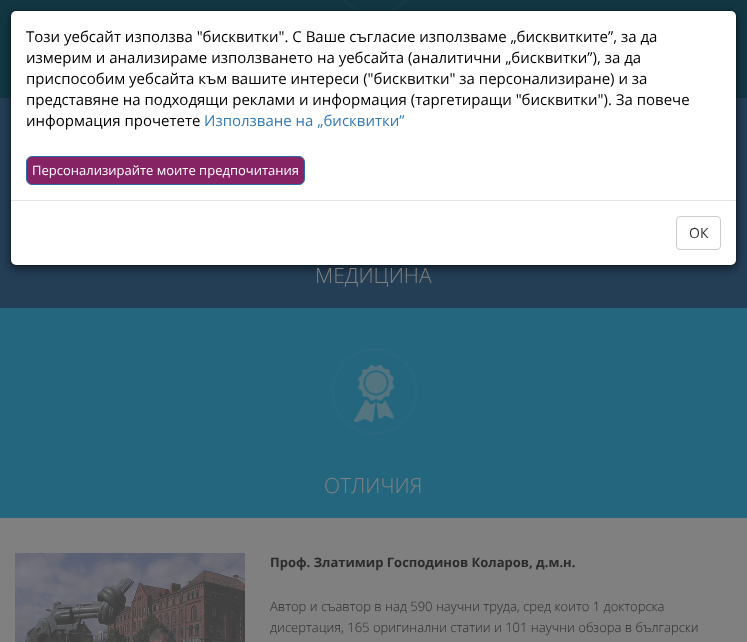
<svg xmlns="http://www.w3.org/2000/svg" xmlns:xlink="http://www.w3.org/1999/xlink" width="747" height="642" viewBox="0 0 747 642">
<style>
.cls-1{font:15px Open Sans;fill:#000000}
.cls-2{font:15px Open Sans;fill:#337ab7}
.cls-3{font:13px Open Sans;fill:#ffffff}
.cls-4{font:14px Open Sans;fill:#333333}
.cls-5{font:300 21px Open Sans;fill:#808080}
.cls-6{font:bold 13px Open Sans;fill:#2b2b2b}
.cls-7{font:300 13px Open Sans;fill:#2b2b2b}
</style>
<rect width="100%" height="100%" fill="#808080"/>
<rect fill="#123743" x="0" y="0" width="747" height="98"/>
<image xlink:href="image0.png" x="343" y="0" width="65" height="11"/>
<rect fill="#243e56" x="0" y="98" width="747" height="210"/>
<rect fill="#000000" fill-opacity="0.5" filter="blur(4.5px)" x="10" y="13" width="727" height="256" rx="6"/>
<rect fill="#ffffff" x="11" y="11" width="725" height="254" rx="5"/>
<rect fill="none" stroke="#000000" stroke-opacity="0.2" x="10.5" y="10.5" width="726" height="255" rx="5.5"/>
<rect fill="#852364" stroke="#2e6da4" x="26.5" y="156.5" width="278" height="28" rx="5.5"/>
<rect fill="#e5e5e5" x="11" y="200" width="725" height="1"/>
<rect fill="none" stroke="#cccccc" x="676.5" y="216.5" width="44" height="33" rx="3.5"/>
<rect fill="#24667e" x="0" y="308" width="747" height="210"/>
<image xlink:href="image1.png" x="331" y="348" width="87" height="87"/>
<image xlink:href="image2.png" x="15" y="553" width="230" height="89"/>
<text class="cls-1"><tspan x="26" y="42">Този уебсайт използва "бисквитки". С Ваше съгласие използваме „бисквитките”, за да</tspan><tspan x="26" y="63">измерим и анализираме използването на уебсайта (аналитични „бисквитки”), за да</tspan><tspan x="26" y="84">приспособим уебсайта към вашите интереси ("бисквитки" за персонализиране) и за</tspan><tspan x="26" y="105">представяне на подходящи реклами и информация (таргетиращи "бисквитки"). За повече</tspan><tspan x="26" y="126">информация прочетете</tspan></text>
<text class="cls-2" x="204" y="126">Използване на „бисквитки”</text>
<text class="cls-3" x="32" y="175">Персонализирайте моите предпочитания</text>
<text class="cls-4" x="689" y="238">ОК</text>
<text class="cls-5" x="315" y="283">МЕДИЦИНА</text>
<text class="cls-5" x="324" y="493">ОТЛИЧИЯ</text>
<text class="cls-6" x="270" y="567">Проф. Златимир Господинов Коларов, д.м.н.</text>
<text class="cls-7"><tspan x="270" y="611">Автор и съавтор в над 590 научни труда, сред които 1 докторска</tspan><tspan x="270" y="632">дисертация, 165 оригинални статии и 101 научни обзора в български</tspan></text>
</svg>
